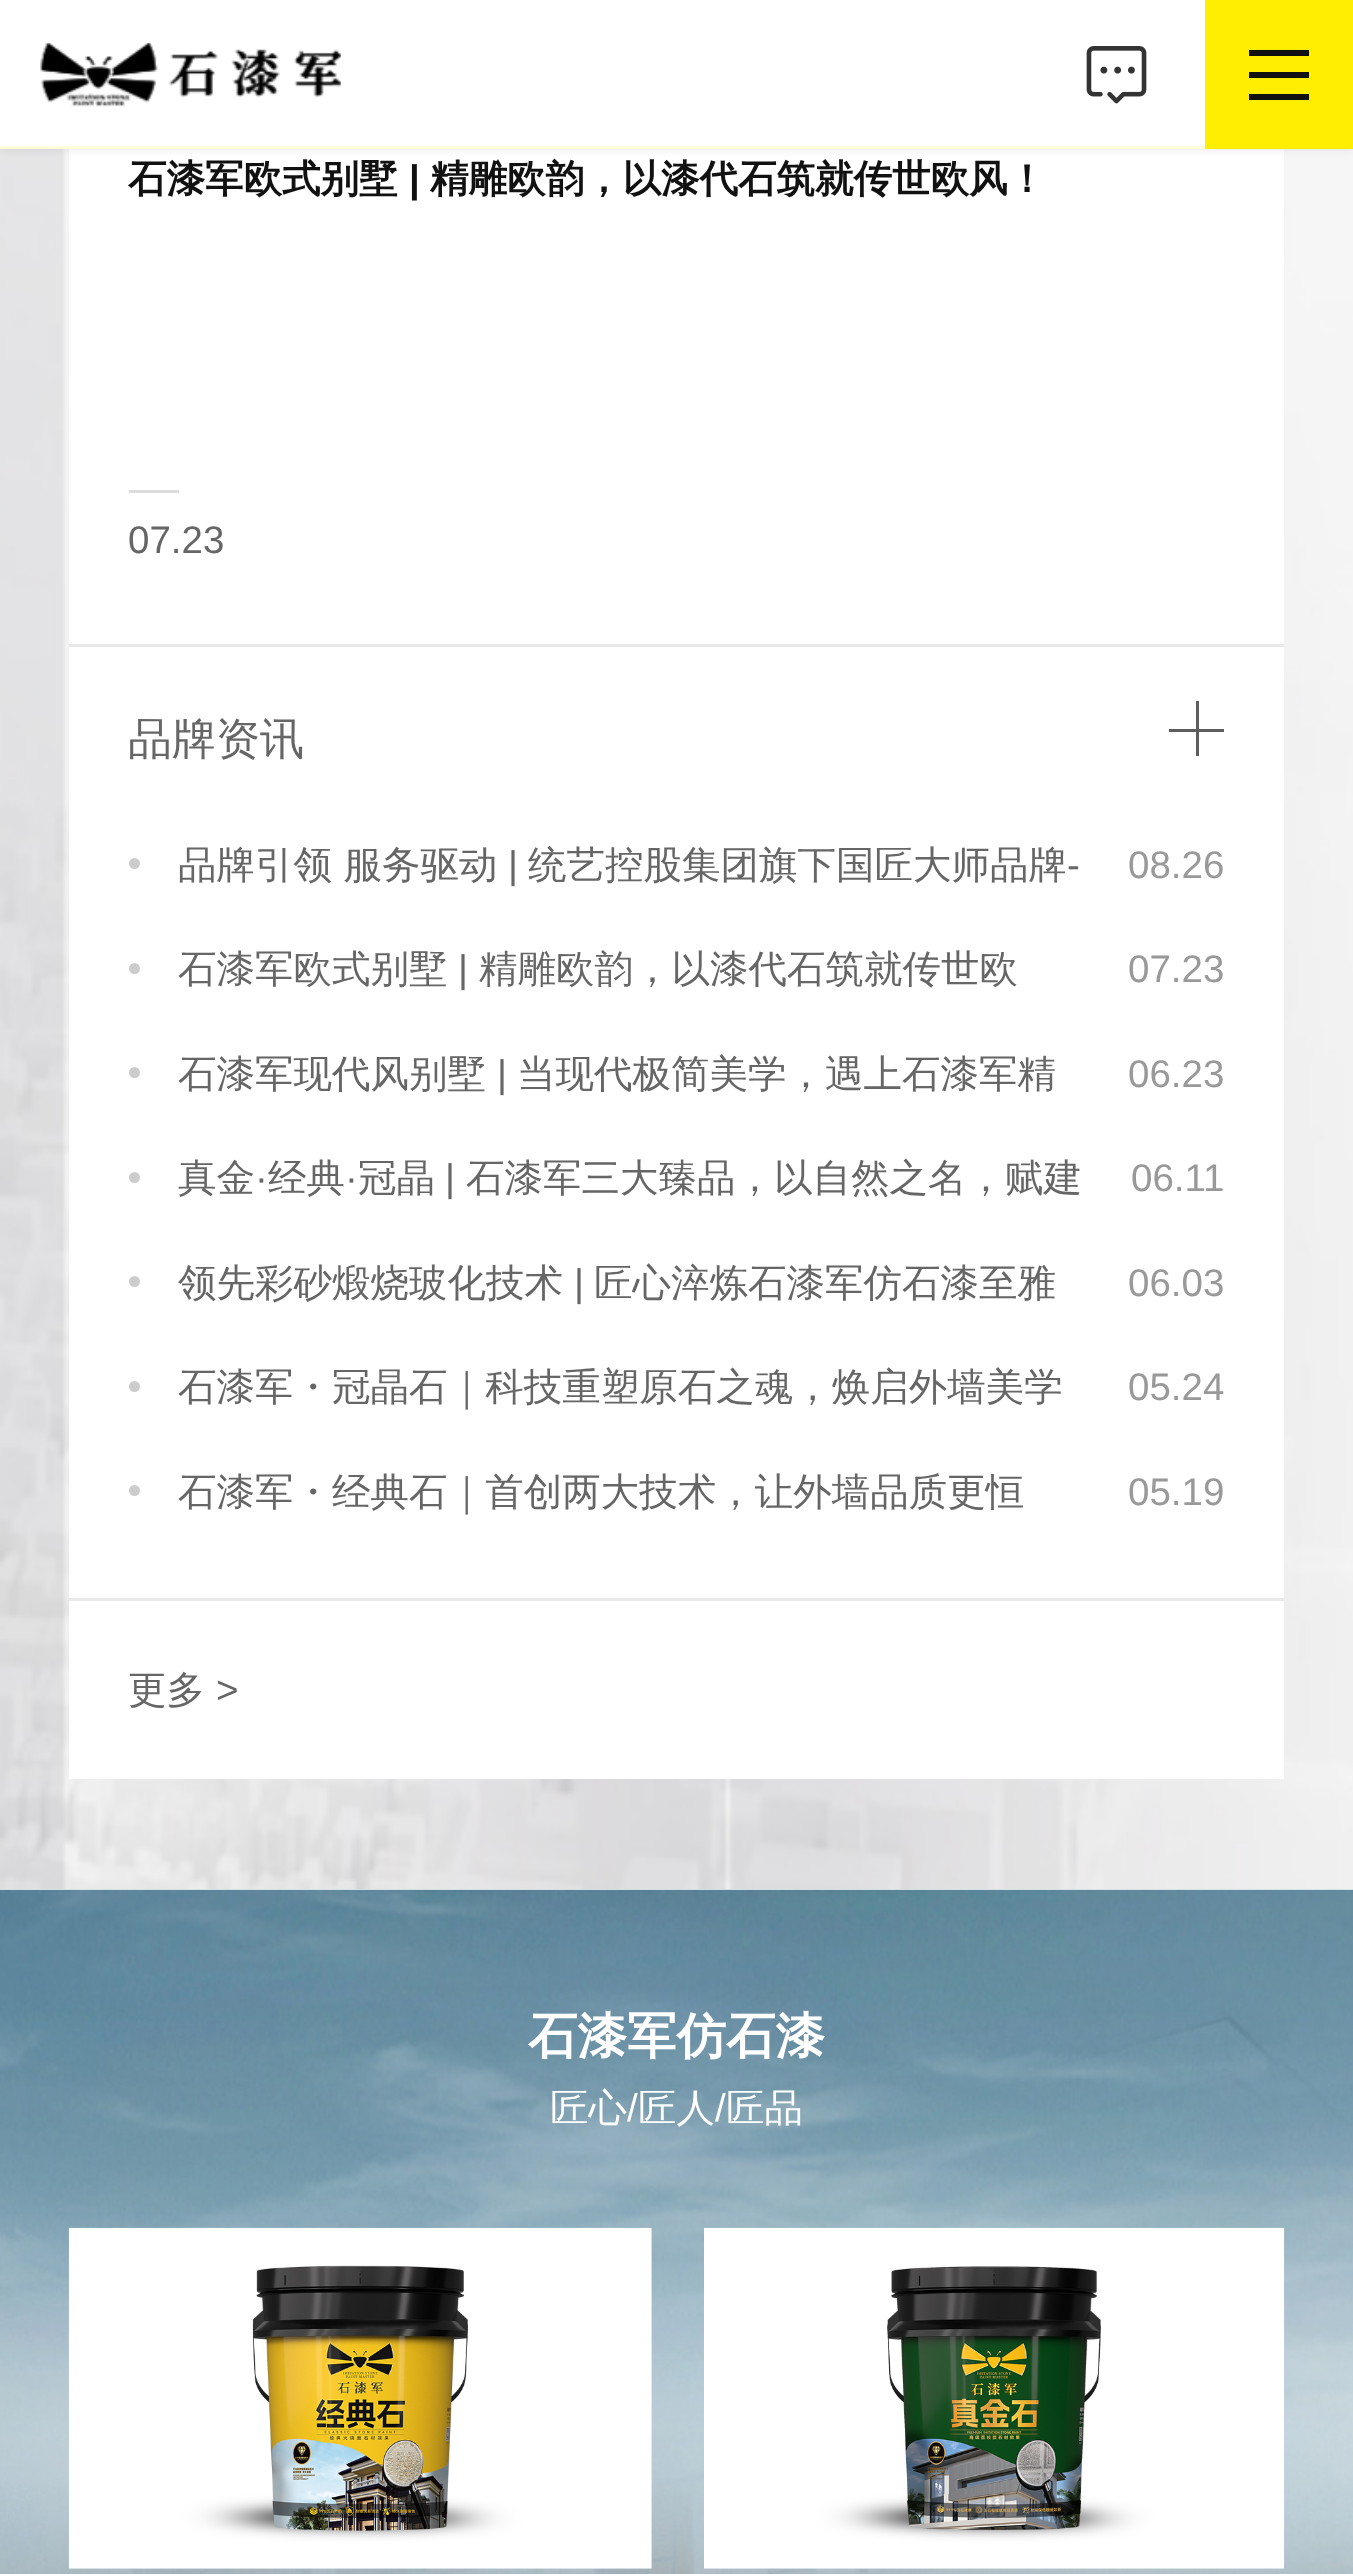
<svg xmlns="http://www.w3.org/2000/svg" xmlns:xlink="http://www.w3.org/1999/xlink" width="1353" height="2574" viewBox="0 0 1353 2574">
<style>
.cls-1{font:bold 38.5px WenQuanYi Zen Hei;fill:#111111}
.cls-2{font:bold 38.5px Liberation Sans;fill:#111111}
.cls-3{font:38.5px Liberation Sans;fill:#666666}
.cls-4{font:500 44px WenQuanYi Zen Hei;fill:#666666}
.cls-5{font:500 38.5px WenQuanYi Zen Hei;fill:#666666}
.cls-6{font:38.5px Liberation Sans;fill:#999999}
.cls-7{font:bold 49.5px WenQuanYi Zen Hei;fill:#ffffff}
.cls-8{font:500 38.5px WenQuanYi Zen Hei;fill:#ffffff}
.cls-9{font:38.5px Liberation Sans;fill:#ffffff}
</style>
<rect width="100%" height="100%" fill="#ffffff"/>
<image xlink:href="image2.png" x="0" y="149" width="1353" height="1740"/>
<rect fill="#ffffff" x="69" y="149" width="1215" height="1630"/>
<rect fill="#000000" fill-opacity="0.1" filter="blur(4px)" x="0" y="0" width="1353" height="149"/>
<rect fill="#ffffff" x="0" y="0" width="1205" height="146"/>
<image xlink:href="image0.png" x="40" y="42" width="301" height="65"/>
<image xlink:href="image1.png" x="1086" y="46" width="61" height="58"/>
<rect fill="#ffee00" x="1205" y="0" width="148" height="149"/>
<rect fill="#111111" x="1249" y="50" width="60" height="6"/>
<rect fill="#111111" x="1249" y="72" width="60" height="6"/>
<rect fill="#111111" x="1249" y="94" width="60" height="6"/>
<rect fill="#fffcd9" x="0" y="146" width="1205" height="3"/>
<rect fill="#dddddd" x="129" y="490" width="50" height="3"/>
<rect fill="#e9e9e9" x="69" y="644" width="1215" height="3"/>
<rect fill="#5d5d5d" x="1169" y="729" width="55" height="3"/>
<rect fill="#5d5d5d" x="1196" y="701" width="3" height="55"/>
<rect fill="#e9e9e9" x="69" y="1598" width="1215" height="3"/>
<circle fill="#cccccc" cx="134.5" cy="863.5" r="5.5"/>
<circle fill="#cccccc" cx="134.5" cy="968.5" r="5.5"/>
<circle fill="#cccccc" cx="134.5" cy="1072.5" r="5.5"/>
<circle fill="#cccccc" cx="134.5" cy="1177.5" r="5.5"/>
<circle fill="#cccccc" cx="134.5" cy="1281.5" r="5.5"/>
<circle fill="#cccccc" cx="134.5" cy="1386.5" r="5.5"/>
<circle fill="#cccccc" cx="134.5" cy="1490.5" r="5.5"/>
<image xlink:href="image3.png" x="0" y="1889" width="1353" height="685"/>
<image xlink:href="image4.png" x="68" y="2227" width="584" height="342"/>
<image xlink:href="image5.png" x="704" y="2227" width="581" height="342"/>
<text class="cls-1" x="128" y="192">石漆军欧式别墅</text>
<text class="cls-2" x="409" y="192">|</text>
<text class="cls-1" x="430" y="192">精雕欧韵，以漆代石筑就传世欧风！</text>
<text class="cls-3" x="128" y="553">07.23</text>
<text class="cls-4" x="128" y="754">品牌资讯</text>
<text class="cls-5" x="178" y="878">品牌引领 服务驱动</text>
<text class="cls-3" x="508" y="878">|</text>
<text class="cls-5" x="528" y="878">统艺控股集团旗下国匠大师品牌</text>
<text class="cls-3" x="1067" y="878">-</text>
<text class="cls-6" x="1128" y="878">08.26</text>
<text class="cls-5" x="178" y="982">石漆军欧式别墅</text>
<text class="cls-3" x="458" y="982">|</text>
<text class="cls-5" x="479" y="982">精雕欧韵，以漆代石筑就传世欧</text>
<text class="cls-6" x="1128" y="982">07.23</text>
<text class="cls-5" x="178" y="1087">石漆军现代风别墅</text>
<text class="cls-3" x="497" y="1087">|</text>
<text class="cls-5" x="517" y="1087">当现代极简美学，遇上石漆军精</text>
<text class="cls-6" x="1128" y="1087">06.23</text>
<text class="cls-5" x="178" y="1191">真金</text>
<text class="cls-3" x="255" y="1191">·</text>
<text class="cls-5" x="268" y="1191">经典</text>
<text class="cls-3" x="345" y="1191">·</text>
<text class="cls-5" x="358" y="1191">冠晶</text>
<text class="cls-3" x="445" y="1191">|</text>
<text class="cls-5" x="466" y="1191">石漆军三大臻品，以自然之名，赋建</text>
<text class="cls-6" x="1131" y="1191">06.11</text>
<text class="cls-5" x="178" y="1296">领先彩砂煅烧玻化技术</text>
<text class="cls-3" x="574" y="1296">|</text>
<text class="cls-5" x="594" y="1296">匠心淬炼石漆军仿石漆至雅</text>
<text class="cls-6" x="1128" y="1296">06.03</text>
<text class="cls-5" x="178" y="1400">石漆军・冠晶石｜科技重塑原石之魂，焕启外墙美学</text>
<text class="cls-6" x="1128" y="1400">05.24</text>
<text class="cls-5" x="178" y="1505">石漆军・经典石｜首创两大技术，让外墙品质更恒</text>
<text class="cls-6" x="1128" y="1505">05.19</text>
<text class="cls-5" x="128" y="1703">更多</text>
<text class="cls-3" x="216" y="1703">&gt;</text>
<text class="cls-7" x="528" y="2053">石漆军仿石漆</text>
<text class="cls-8" x="550" y="2121">匠心</text>
<text class="cls-9" x="627" y="2121">/</text>
<text class="cls-8" x="638" y="2121">匠人</text>
<text class="cls-9" x="715" y="2121">/</text>
<text class="cls-8" x="726" y="2121">匠品</text>
</svg>
